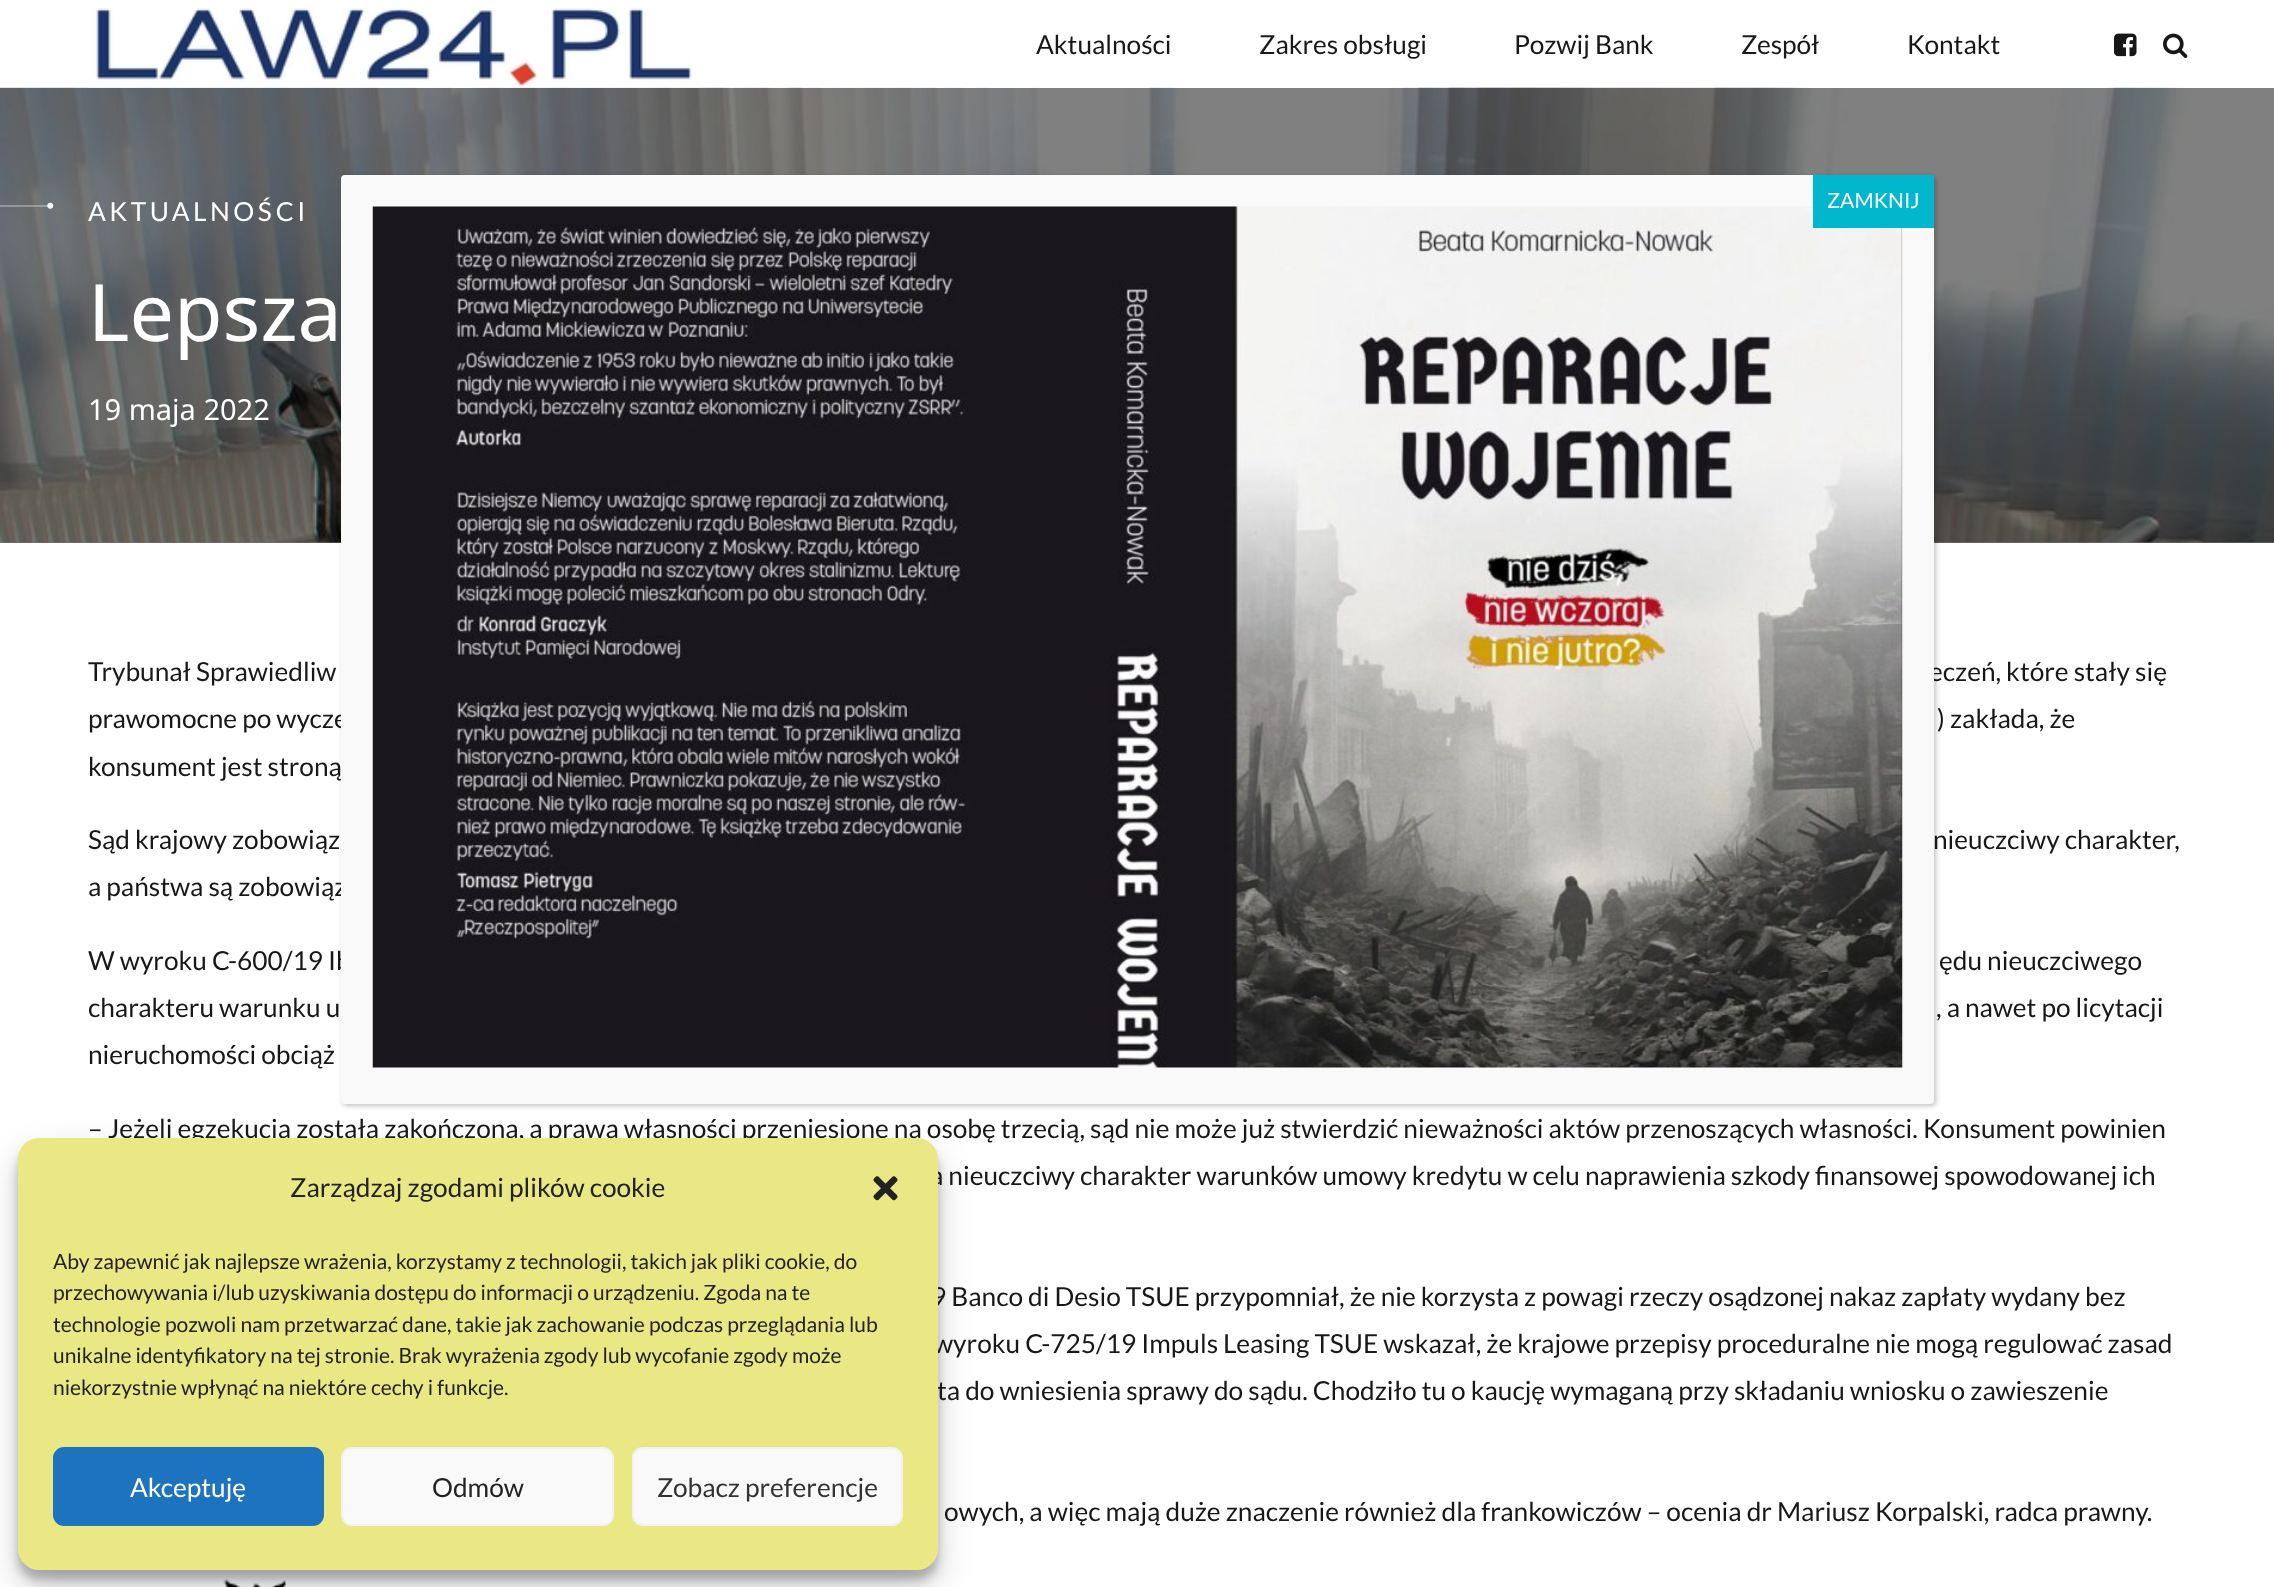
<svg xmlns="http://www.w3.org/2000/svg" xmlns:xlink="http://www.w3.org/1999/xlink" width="2274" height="1587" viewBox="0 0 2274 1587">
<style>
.cls-1{font:26.25px Lato;fill:#181818}
.cls-2{font:26.25px Lato;letter-spacing:3.5px;fill:#ffffff}
.cls-3{font:79px Noto Sans;fill:#ffffff}
.cls-4{font:29px Noto Sans;fill:#ffffff}
.cls-5{font:21px Lato;fill:#ffffff}
.cls-6{font:26.25px Lato;fill:#222222}
.cls-7{font:21px Lato;fill:#222222}
.cls-8{font:26.25px Lato;fill:#ffffff}
.cls-9{font:26.25px Lato;fill:#333333}
</style>
<rect width="100%" height="100%" fill="#ffffff"/>
<rect fill="#777777" x="0" y="542" width="2274" height="1"/>
<image xlink:href="image3.png" x="0" y="87" width="2274" height="456"/>
<image xlink:href="image0.png" x="87" y="8" width="613" height="80"/>
<image xlink:href="image1.png" x="2114" y="33" width="23" height="24"/>
<image xlink:href="image2.png" x="2163" y="33" width="25" height="25"/>
<rect fill="#ffffff" fill-opacity="0.3" x="0" y="205" width="53" height="2"/>
<image xlink:href="image4.png" x="47" y="202" width="7" height="7"/>
<image xlink:href="image5.png" x="223" y="1578" width="63" height="9"/>
<rect fill="#020202" fill-opacity="0.23" filter="blur(2.5px)" x="343" y="177" width="1593" height="929" rx="4"/>
<rect fill="#000000" fill-opacity="0.23" filter="blur(5px)" x="18" y="1148" width="920" height="432" rx="21"/>
<rect fill="#000000" fill-opacity="0.19" filter="blur(17.5px)" x="18" y="1155" width="920" height="432" rx="21"/>
<text class="cls-1" x="1036" y="54">Aktualności</text>
<text class="cls-1" x="1259" y="54">Zakres obsługi</text>
<text class="cls-1" x="1514" y="54">Pozwij Bank</text>
<text class="cls-1" x="1741" y="54">Zespół</text>
<text class="cls-1" x="1907" y="54">Kontakt</text>
<text class="cls-2" x="88" y="221">AKTUALNOŚCI</text>
<text class="cls-3" x="88" y="341">Lepsza</text>
<text class="cls-4" x="88" y="420">19 maja 2022</text>
<text class="cls-1" x="88" y="681">Trybunał Sprawiedliw</text>
<text class="cls-1" x="1929" y="681">eczeń, które stały się</text>
<text class="cls-1" x="88" y="728">prawomocne po wycze</text>
<text class="cls-1" x="1937" y="728">) zakłada, że</text>
<text class="cls-1" x="88" y="776">konsument jest stroną</text>
<text class="cls-1" x="88" y="849">Sąd krajowy zobowiąz</text>
<text class="cls-1" x="1933" y="849">nieuczciwy charakter,</text>
<text class="cls-1" x="88" y="896">a państwa są zobowiąz</text>
<text class="cls-1" x="88" y="970">W wyroku C-600/19 Ib</text>
<text class="cls-1" x="1939" y="970">ędu nieuczciwego</text>
<text class="cls-1" x="88" y="1017">charakteru warunku u</text>
<text class="cls-1" x="1936" y="1017">, a nawet po licytacji</text>
<text class="cls-1" x="88" y="1064">nieruchomości obciąż</text>
<text class="cls-1" x="88" y="1138">– Jeżeli egzekucja została zakończona, a prawa własności przeniesione na osobę trzecią, sąd nie może już stwierdzić nieważności aktów przenoszących własności. Konsument powinien</text>
<text class="cls-1" x="930" y="1185">a nieuczciwy charakter warunków umowy kredytu w celu naprawienia szkody finansowej spowodowanej ich</text>
<text class="cls-1" x="931" y="1306">9 Banco di Desio TSUE przypomniał, że nie korzysta z powagi rzeczy osądzonej nakaz zapłaty wydany bez</text>
<text class="cls-1" x="933" y="1353">wyroku C-725/19 Impuls Leasing TSUE wskazał, że krajowe przepisy proceduralne nie mogą regulować zasad</text>
<text class="cls-1" x="937" y="1400">ta do wniesienia sprawy do sądu. Chodziło tu o kaucję wymaganą przy składaniu wniosku o zawieszenie</text>
<text class="cls-1" x="944" y="1521">owych, a więc mają duże znaczenie również dla frankowiczów – ocenia dr Mariusz Korpalski, radca prawny.</text>
<rect fill="#f9f9f9" x="341" y="175" width="1593" height="929" rx="4"/>
<image xlink:href="image6.png" x="372" y="206" width="1531" height="862"/>
<rect fill="#00b7cd" x="1813" y="175" width="121" height="53"/>
<text class="cls-5" x="1827" y="208">ZAMKNIJ</text>
<rect fill="#eae885" x="18" y="1138" width="920" height="432" rx="21"/>
<text class="cls-6" x="290" y="1197">Zarządzaj zgodami plików cookie</text>
<image xlink:href="image7.png" x="873" y="1176" width="25" height="25"/>
<text class="cls-7"><tspan x="53" y="1269">Aby zapewnić jak najlepsze wrażenia, korzystamy z technologii, takich jak pliki cookie, do</tspan><tspan x="53" y="1300">przechowywania i/lub uzyskiwania dostępu do informacji o urządzeniu. Zgoda na te</tspan><tspan x="53" y="1332">technologie pozwoli nam przetwarzać dane, takie jak zachowanie podczas przeglądania lub</tspan><tspan x="53" y="1363">unikalne identyfikatory na tej stronie. Brak wyrażenia zgody lub wycofanie zgody może</tspan><tspan x="53" y="1395">niekorzystnie wpłynąć na niektóre cechy i funkcje.</tspan></text>
<rect fill="#1e73be" stroke="#1e73be" stroke-width="2" x="54" y="1448" width="269" height="77" rx="10"/>
<text class="cls-8" x="130" y="1497">Akceptuję</text>
<rect fill="#f9f9f9" stroke="#f2f2f2" stroke-width="2" x="342" y="1448" width="271" height="77" rx="10"/>
<text class="cls-6" x="432" y="1497">Odmów</text>
<rect fill="#f9f9f9" stroke="#f2f2f2" stroke-width="2" x="633" y="1448" width="269" height="77" rx="10"/>
<text class="cls-9" x="657" y="1497">Zobacz preferencje</text>
</svg>
